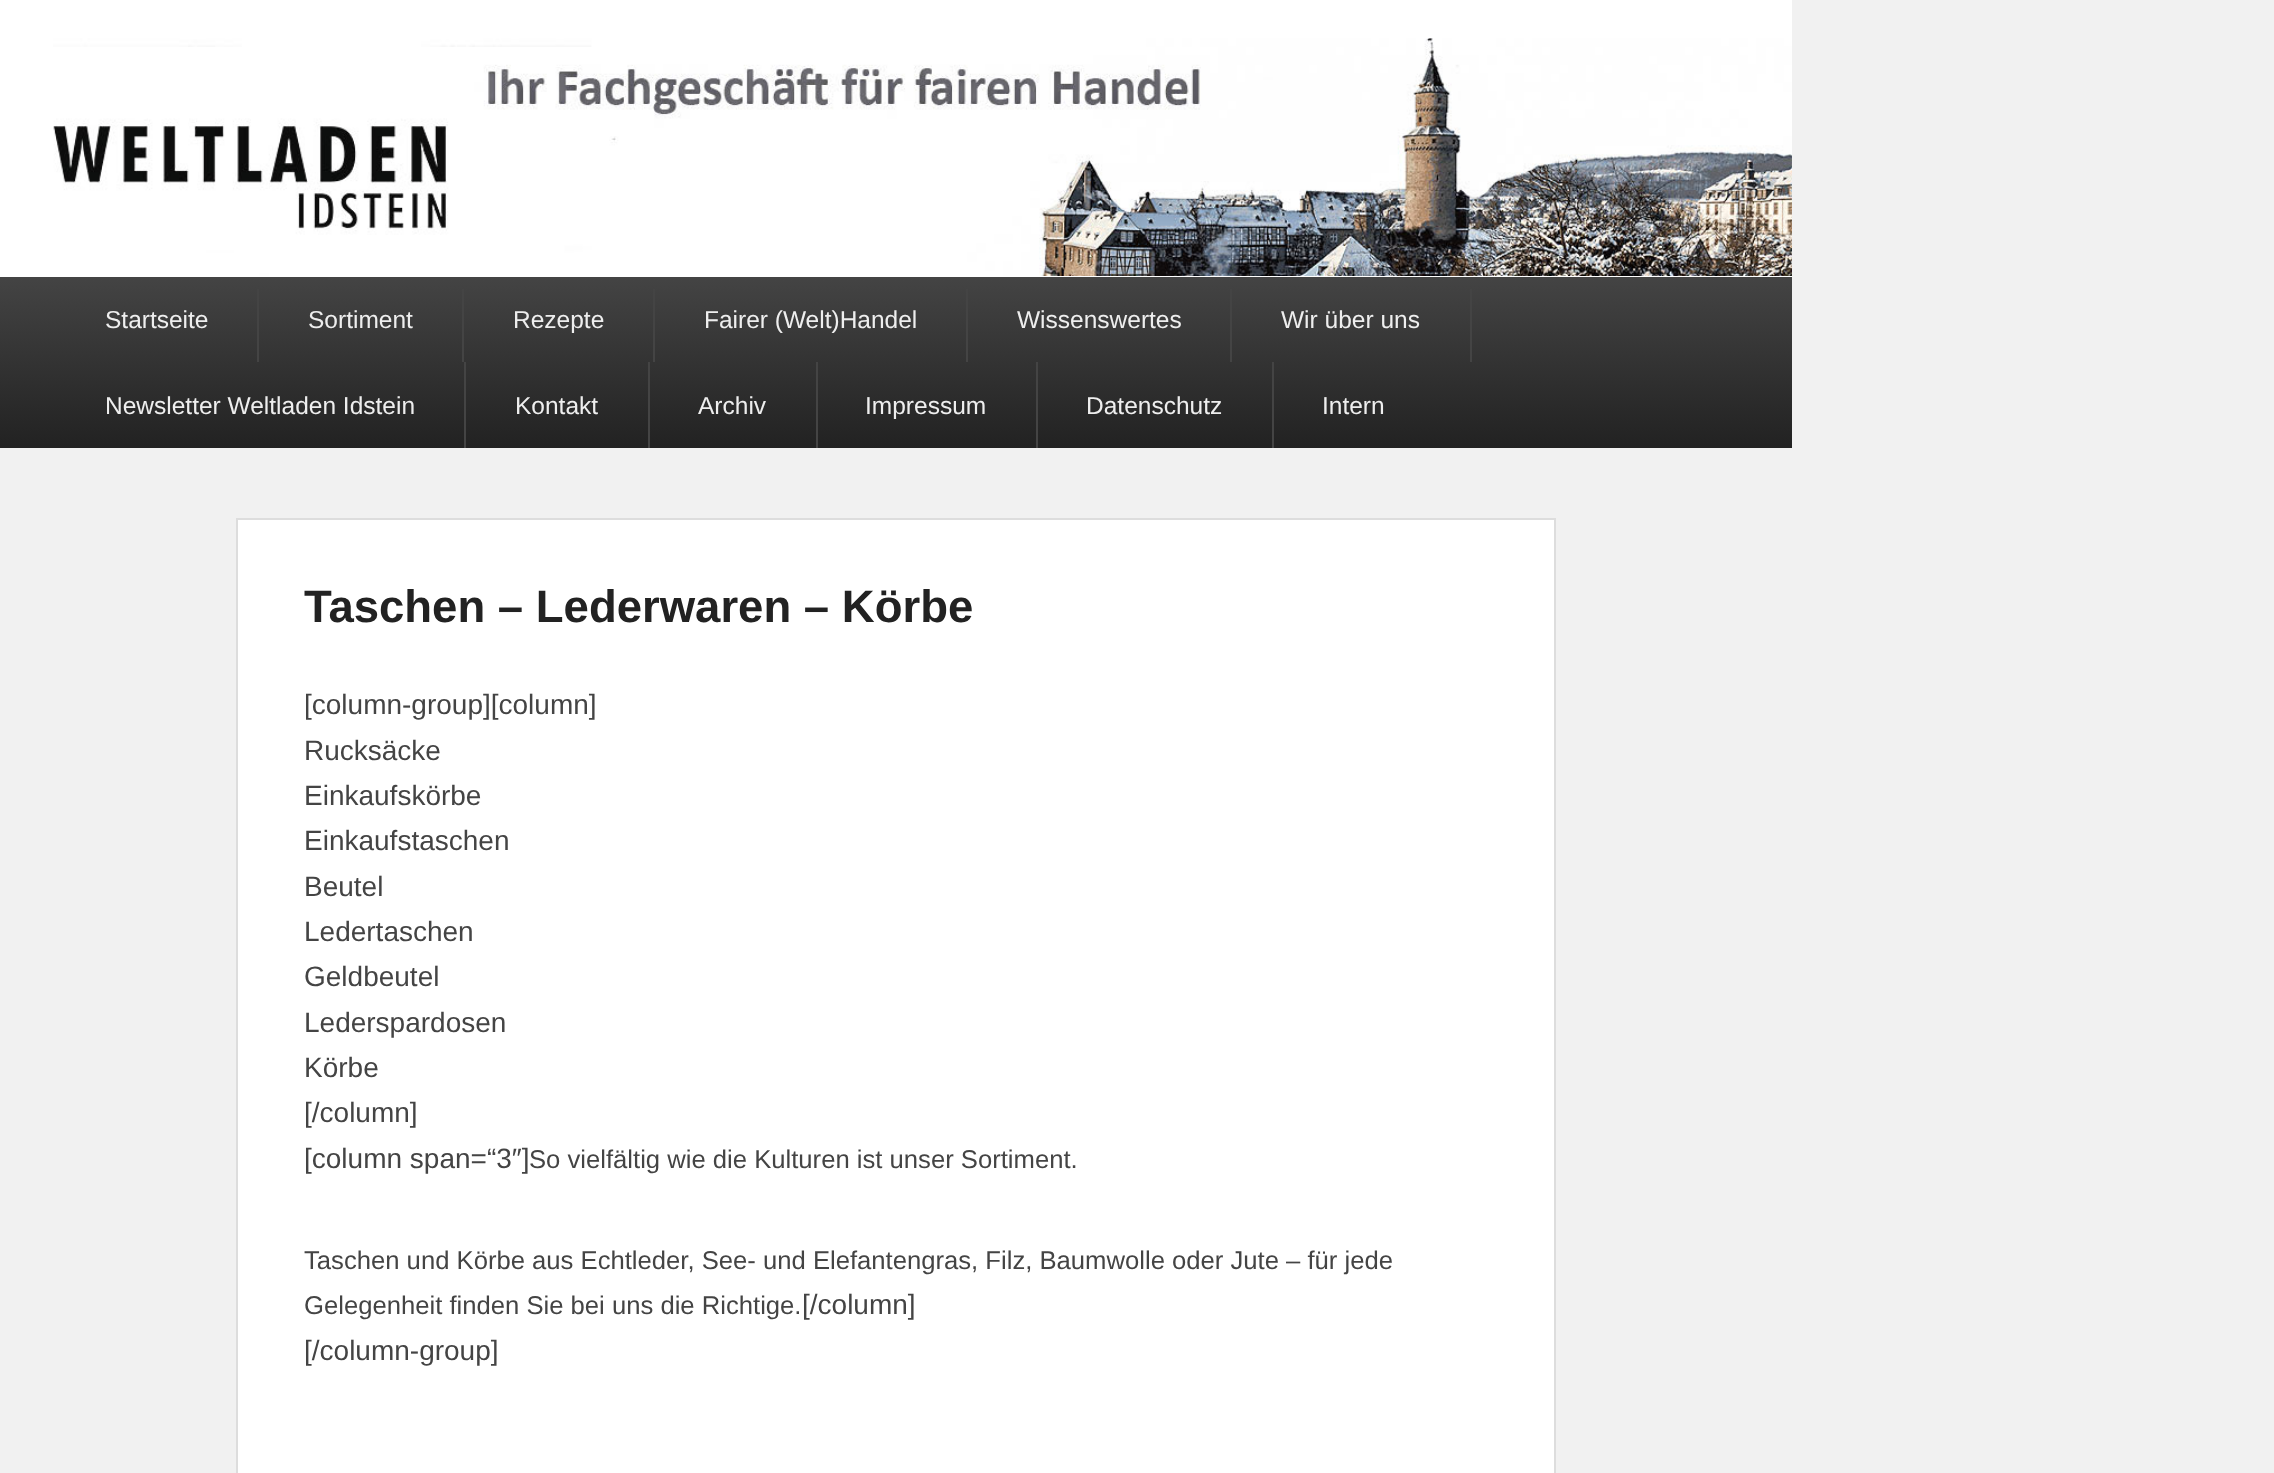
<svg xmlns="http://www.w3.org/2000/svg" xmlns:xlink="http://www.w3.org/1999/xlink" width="2274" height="1473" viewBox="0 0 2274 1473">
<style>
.cls-1{font:24.5px Liberation Sans;fill:#eeeeee}
.cls-2{font:bold 45.5px Liberation Sans;fill:#222222}
.cls-3{font:28px Liberation Sans;fill:#444444}
.cls-4{font:25.65px Liberation Sans;fill:#444444}
</style>
<defs>
<linearGradient id="g1" gradientUnits="userSpaceOnUse" x1="896" y1="276" x2="896" y2="448"><stop offset="0" stop-color="#444444"/><stop offset="1" stop-color="#222222"/></linearGradient>
</defs>
<rect width="100%" height="100%" fill="#f1f1f1"/>
<rect fill="#ffffff" x="0" y="0" width="1792" height="277"/>
<image xlink:href="image0.png" x="53" y="38" width="1739" height="238"/>
<rect fill="url(#g1)" x="0" y="277" width="1792" height="171"/>
<rect fill="#444444" x="257" y="289" width="2" height="73"/>
<rect fill="#444444" x="462" y="289" width="2" height="73"/>
<rect fill="#444444" x="653" y="289" width="2" height="73"/>
<rect fill="#444444" x="966" y="289" width="2" height="73"/>
<rect fill="#444444" x="1230" y="289" width="2" height="73"/>
<rect fill="#444444" x="1470" y="289" width="2" height="73"/>
<rect fill="#444444" x="464" y="362" width="2" height="86"/>
<rect fill="#444444" x="648" y="362" width="2" height="86"/>
<rect fill="#444444" x="816" y="362" width="2" height="86"/>
<rect fill="#444444" x="1036" y="362" width="2" height="86"/>
<rect fill="#444444" x="1272" y="362" width="2" height="86"/>
<rect fill="#ffffff" stroke="#dddddd" stroke-width="2" x="237" y="519" width="1318" height="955"/>
<text class="cls-1" x="105" y="328">Startseite</text>
<text class="cls-1" x="308" y="328">Sortiment</text>
<text class="cls-1" x="513" y="328">Rezepte</text>
<text class="cls-1" x="704" y="328">Fairer (Welt)Handel</text>
<text class="cls-1" x="1017" y="328">Wissenswertes</text>
<text class="cls-1" x="1281" y="328">Wir über uns</text>
<text class="cls-1" x="105" y="414">Newsletter Weltladen Idstein</text>
<text class="cls-1" x="515" y="414">Kontakt</text>
<text class="cls-1" x="698" y="414">Archiv</text>
<text class="cls-1" x="865" y="414">Impressum</text>
<text class="cls-1" x="1086" y="414">Datenschutz</text>
<text class="cls-1" x="1322" y="414">Intern</text>
<text class="cls-2" x="304" y="622">Taschen – Lederwaren – Körbe</text>
<text class="cls-3"><tspan x="304" y="714">[column-group][column]</tspan><tspan x="304" y="760">Rucksäcke</tspan><tspan x="304" y="805">Einkaufskörbe</tspan><tspan x="304" y="850">Einkaufstaschen</tspan><tspan x="304" y="896">Beutel</tspan><tspan x="304" y="941">Ledertaschen</tspan><tspan x="304" y="986">Geldbeutel</tspan><tspan x="304" y="1032">Lederspardosen</tspan><tspan x="304" y="1077">Körbe</tspan><tspan x="304" y="1122">[/column]</tspan><tspan x="304" y="1168">[column span=“3″]</tspan></text>
<text class="cls-4" x="529" y="1168">So vielfältig wie die Kulturen ist unser Sortiment.</text>
<text class="cls-4"><tspan x="304" y="1269">Taschen und Körbe aus Echtleder, See- und Elefantengras, Filz, Baumwolle oder Jute – für jede</tspan><tspan x="304" y="1314">Gelegenheit finden Sie bei uns die Richtige.</tspan></text>
<text class="cls-3" x="802" y="1314">[/column]</text>
<text class="cls-3" x="304" y="1360">[/column-group]</text>
</svg>
